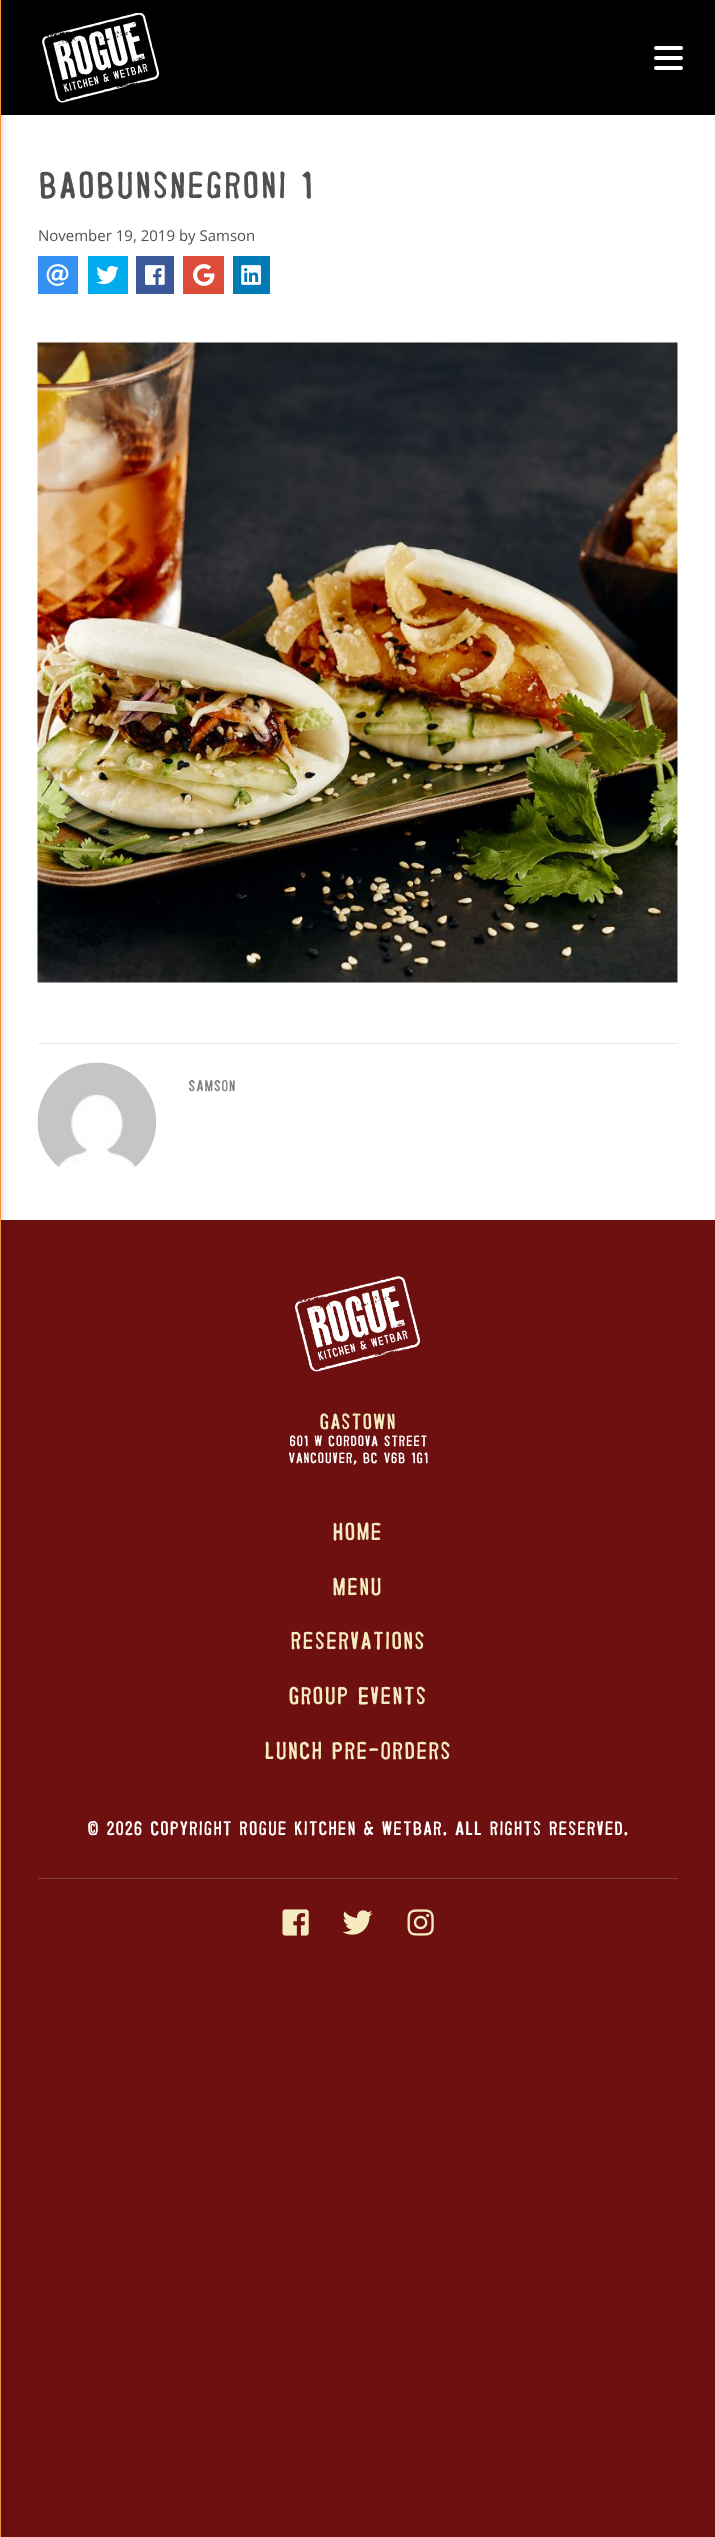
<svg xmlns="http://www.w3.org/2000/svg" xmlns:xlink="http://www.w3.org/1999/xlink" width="715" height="2537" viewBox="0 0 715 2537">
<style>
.cls-1{font:48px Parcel;fill:#505050}
.cls-2{font:15px Open Sans;fill:#505050}
.cls-3{font:20px Parcel;fill:#808080}
.cls-4{font:28px Parcel;fill:#f5ebbe}
.cls-5{font:19px Parcel;fill:#ffffff}
.cls-6{font:31.25px Parcel;fill:#f5ebbe}
.cls-7{font:25px Parcel;fill:#ffffff}
</style>
<rect width="100%" height="100%" fill="#6e1010"/>
<rect fill="#ffffff" x="1" y="115" width="714" height="1105"/>
<rect fill="#000000" x="1" y="0" width="714" height="115"/>
<rect fill="#000000" fill-opacity="0.12" filter="blur(6px)" x="-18" y="3" width="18" height="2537"/>
<rect fill="#000000" fill-opacity="0.16" filter="blur(3px)" x="-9" y="3" width="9" height="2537"/>
<rect fill="#f79231" x="0" y="0" width="1" height="2537"/>
<image xlink:href="image0.png" x="42" y="13" width="118" height="90"/>
<rect fill="#ffffff" x="654" y="46" width="29" height="4" rx="2"/>
<rect fill="#ffffff" x="654" y="56" width="29" height="4" rx="2"/>
<rect fill="#ffffff" x="654" y="66" width="29" height="4" rx="2"/>
<rect fill="#3490f3" x="38" y="256" width="40" height="38"/>
<image xlink:href="image1.png" x="46" y="264" width="23" height="22"/>
<rect fill="#00aced" x="88" y="256" width="40" height="38"/>
<image xlink:href="image2.png" x="96" y="265" width="23" height="20"/>
<rect fill="#3b5998" x="136" y="256" width="38" height="38"/>
<image xlink:href="image3.png" x="145" y="265" width="20" height="20"/>
<rect fill="#dd4b39" x="183" y="256" width="41" height="38"/>
<image xlink:href="image4.png" x="193" y="264" width="22" height="22"/>
<rect fill="#007bb6" x="233" y="256" width="37" height="38"/>
<image xlink:href="image5.png" x="241" y="265" width="20" height="20"/>
<image xlink:href="image6.png" x="37" y="342" width="641" height="641"/>
<rect fill="#eaeaea" x="38" y="1043" width="640" height="1"/>
<image xlink:href="image7.png" x="37" y="1062" width="119" height="106"/>
<image xlink:href="image8.png" x="295" y="1276" width="125" height="96"/>
<rect fill="#8b4040" x="38" y="1878" width="640" height="1"/>
<image xlink:href="image9.png" x="282" y="1909" width="27" height="27"/>
<image xlink:href="image10.png" x="342" y="1910" width="31" height="25"/>
<image xlink:href="image11.png" x="407" y="1909" width="27" height="27"/>
<text class="cls-1" x="38" y="198">BaoBunsNegroni 1</text>
<text class="cls-2" x="38" y="241">November 19, 2019 by Samson</text>
<text class="cls-3" x="188" y="1091">SAMSON</text>
<text class="cls-4" x="319" y="1429">Gastown</text>
<text class="cls-5" x="289" y="1446">601 W Cordova Street</text>
<text class="cls-5" x="288" y="1463">Vancouver, BC V6B 1G1</text>
<text class="cls-6"><tspan x="332" y="1540">Home</tspan><tspan x="332" y="1595">Menu</tspan></text>
<text class="cls-6" x="290" y="1649">Reservations</text>
<text class="cls-6" x="288" y="1704">Group Events</text>
<text class="cls-6" x="264" y="1759">Lunch Pre-Orders</text>
<text class="cls-7" x="87" y="1835">© 2026 Copyright Rogue Kitchen &amp; Wetbar. All Rights Reserved.</text>
</svg>
